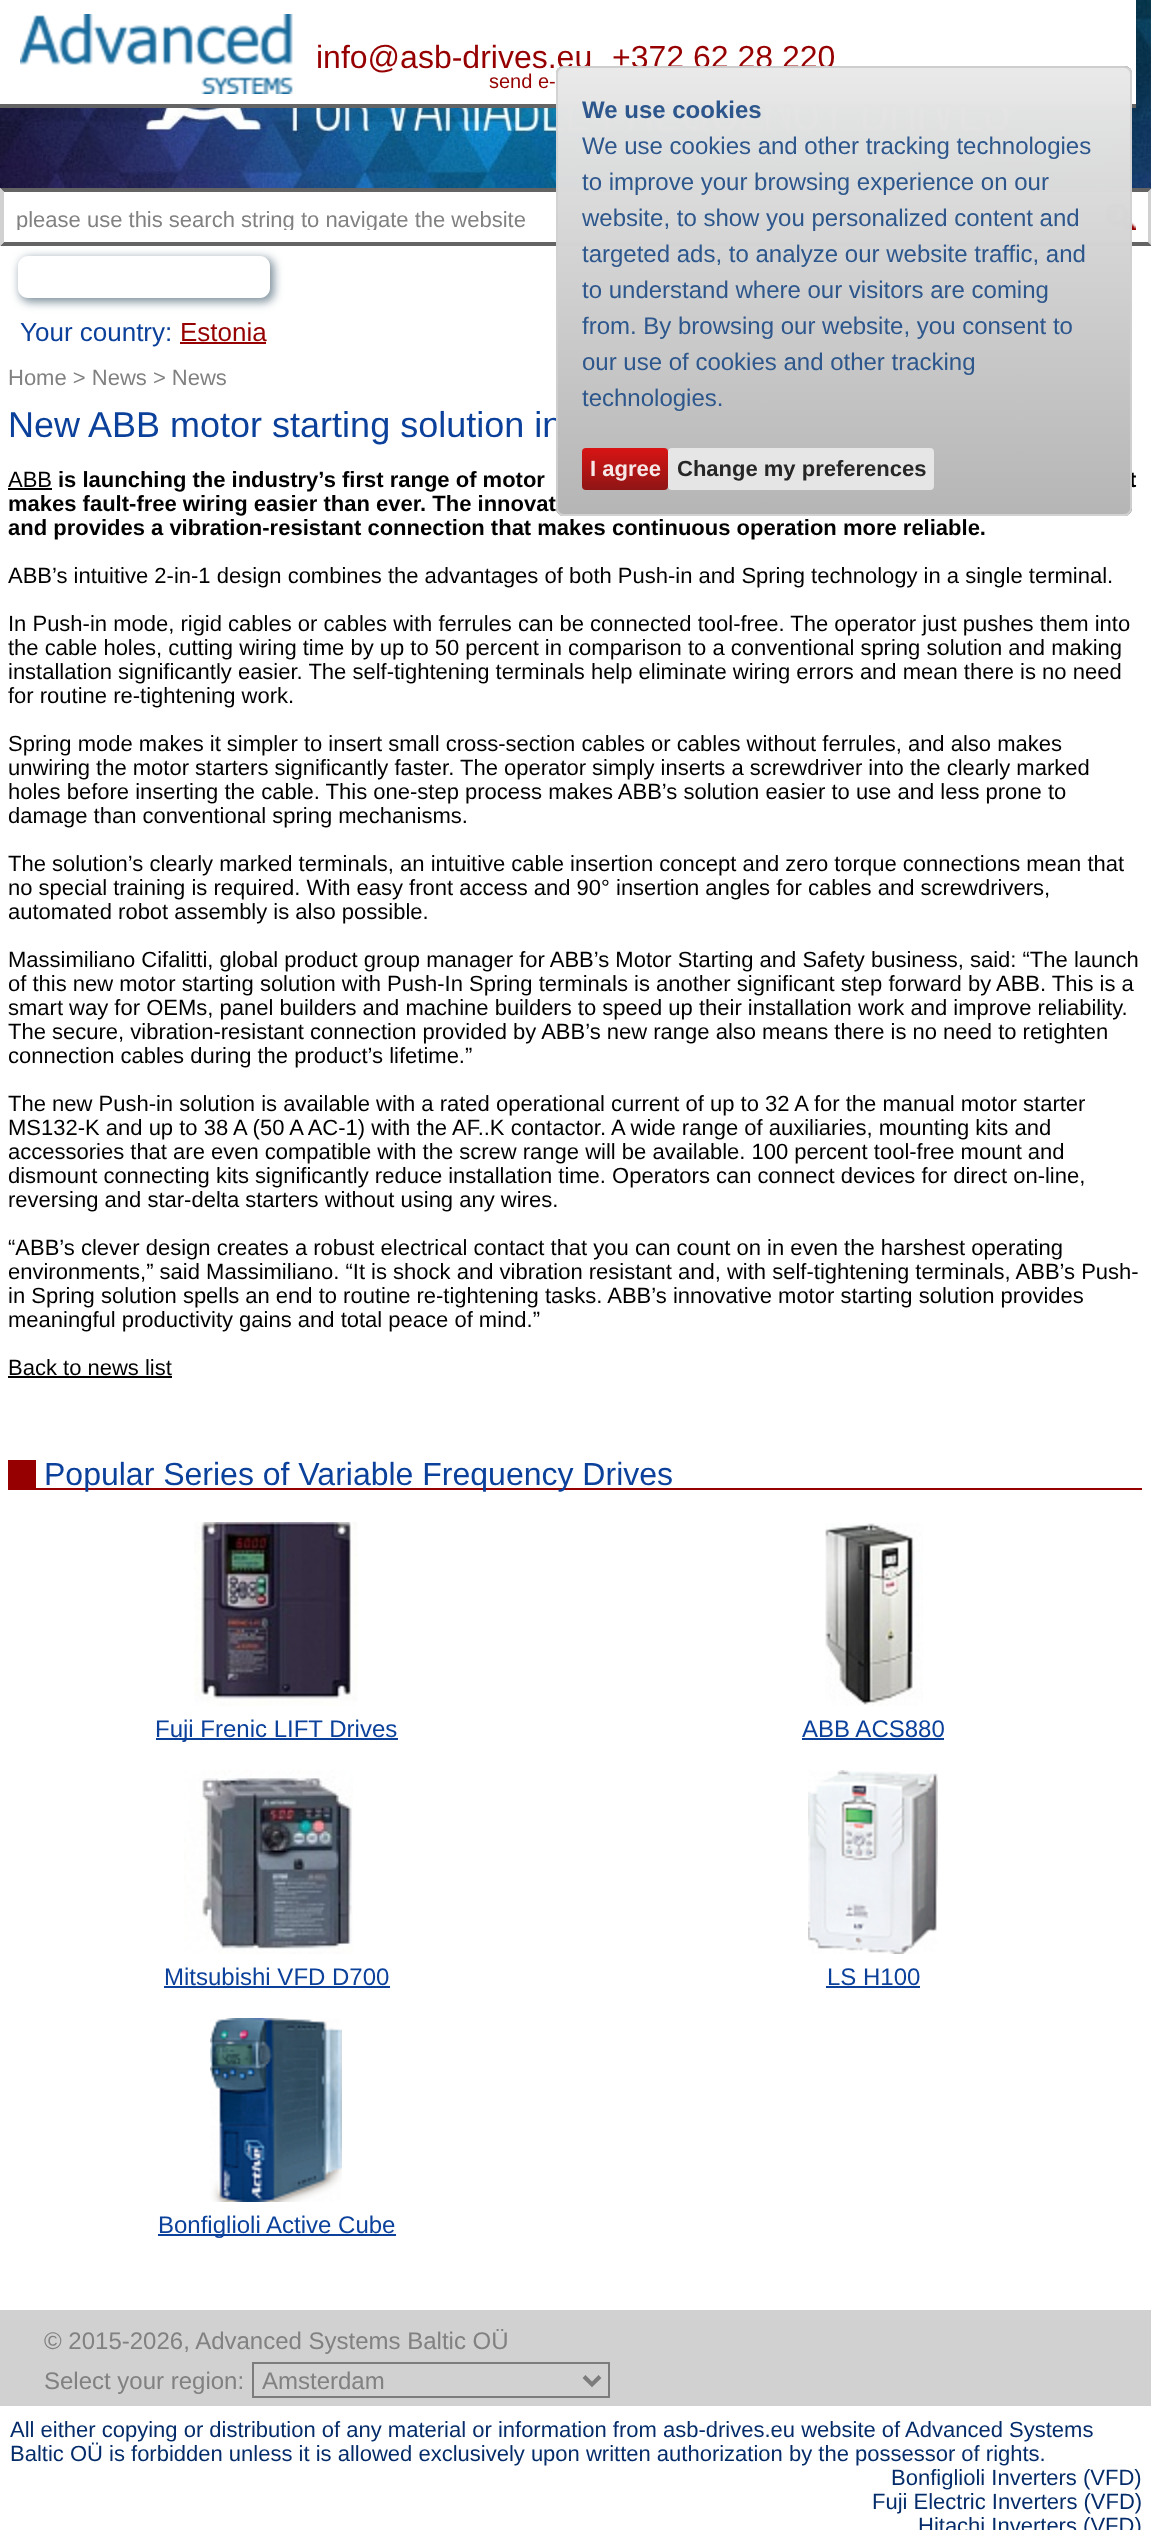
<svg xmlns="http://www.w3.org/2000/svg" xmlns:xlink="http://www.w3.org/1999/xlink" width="1151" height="2530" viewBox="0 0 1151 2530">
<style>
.cls-1{font:32px Liberation Sans;fill:#960000}
.cls-2{font:20px Liberation Sans;fill:#960000}
.cls-3{font:22px Liberation Sans;fill:#818181}
.cls-4{font:26px Liberation Sans;fill:#0b419b}
.cls-5{font:26px Liberation Sans;fill:#960000}
.cls-6{font:36px Liberation Sans;fill:#0b419b}
.cls-7{font:22px Liberation Sans;fill:#000000}
.cls-8{font:bold 22px Liberation Sans;fill:#000000}
.cls-9{font:32px Liberation Sans;fill:#0b419b}
.cls-10{font:24px Liberation Sans;fill:#0b419b}
.cls-11{font:24px Liberation Sans;fill:#818181}
.cls-12{font:22px Liberation Sans;fill:#052c6a}
.cls-13{font:bold 24px Liberation Sans;fill:#2d578c}
.cls-14{font:24px Liberation Sans;fill:#2d578c}
.cls-15{font:bold 22px Liberation Sans;fill:#f7e8e8}
.cls-16{font:bold 22px Liberation Sans;fill:#262626}
</style>
<defs>
<clipPath id="clip1"><path d="M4 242H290V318H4ZM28 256H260C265.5 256 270 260.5 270 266V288C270 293.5 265.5 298 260 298H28C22.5 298 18 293.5 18 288V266C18 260.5 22.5 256 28 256Z" clip-rule="evenodd"/></clipPath>
<clipPath id="clip2"><rect x="16" y="206" width="1080" height="24"/></clipPath>
<clipPath id="clip3"><rect x="556" y="66" width="576" height="450" rx="8"/></clipPath>
<linearGradient id="g1" gradientUnits="userSpaceOnUse" x1="844" y1="68" x2="844" y2="-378"><stop offset="0" stop-color="#c5c5c5" stop-opacity="0.9"/><stop offset="1" stop-color="#ffffff" stop-opacity="0.9"/></linearGradient>
<linearGradient id="g2" gradientUnits="userSpaceOnUse" x1="844" y1="514" x2="844" y2="68"><stop offset="0" stop-color="#c5c5c5" stop-opacity="0.9"/><stop offset="1" stop-color="#ffffff" stop-opacity="0.9"/></linearGradient>
<linearGradient id="g3" gradientUnits="userSpaceOnUse" x1="844" y1="960" x2="844" y2="514"><stop offset="0" stop-color="#c5c5c5" stop-opacity="0.9"/><stop offset="1" stop-color="#ffffff" stop-opacity="0.9"/></linearGradient>
<linearGradient id="g4" gradientUnits="userSpaceOnUse" x1="625" y1="490" x2="625" y2="448"><stop offset="0" stop-color="#8a0303" stop-opacity="0.9"/><stop offset="1" stop-color="#db0101" stop-opacity="0.9"/></linearGradient>
</defs>
<rect width="100%" height="100%" fill="#ffffff"/>
<image xlink:href="image0.png" x="0" y="0" width="1151" height="188"/>
<rect fill="#ffffff" x="0" y="0" width="1136" height="104"/>
<rect fill="#646464" x="0" y="104" width="1136" height="4"/>
<image xlink:href="image1.png" x="20" y="14" width="273" height="80"/>
<path fill="#646464" d="M0 188H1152L1148 192H4Z"/>
<path fill="#d1d1d1" d="M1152 188V246L1148 242V192Z"/>
<path fill="#646464" d="M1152 246H0L4 242H1148Z"/>
<path fill="#d1d1d1" d="M0 246V188L4 192V242Z"/>
<image xlink:href="image2.png" x="1108" y="204" width="28" height="26"/>
<image xlink:href="image3.png" x="1106" y="204" width="28" height="26"/>
<rect fill="#960000" x="180" y="342" width="86" height="2"/>
<g clip-path="url(#clip1)">
<rect fill="#395667" fill-opacity="0.65" filter="blur(5px)" x="20" y="258" width="254" height="44" rx="10"/>
</g>
<rect fill="#000000" x="8" y="488" width="44" height="2"/>
<rect fill="#000000" x="8" y="1376" width="164" height="2"/>
<rect fill="#960000" x="8" y="1460" width="28" height="28"/>
<rect fill="#960000" x="8" y="1488" width="1134" height="2"/>
<image xlink:href="image4.png" x="194" y="1522" width="164" height="184"/>
<rect fill="#0b419b" x="156" y="1738" width="242" height="2"/>
<image xlink:href="image5.png" x="825" y="1523" width="98" height="183"/>
<rect fill="#0b419b" x="802" y="1738" width="142" height="2"/>
<image xlink:href="image6.png" x="184" y="1770" width="169" height="184"/>
<rect fill="#0b419b" x="164" y="1986" width="226" height="2"/>
<image xlink:href="image7.png" x="808" y="1770" width="130" height="184"/>
<rect fill="#0b419b" x="826" y="1986" width="94" height="2"/>
<image xlink:href="image8.png" x="210" y="2018" width="132" height="184"/>
<rect fill="#0b419b" x="158" y="2234" width="238" height="2"/>
<rect fill="#d1d1d1" x="0" y="2310" width="1151" height="96"/>
<rect fill="none" stroke="#7d7c7c" stroke-width="2" x="253" y="2363" width="356" height="34"/>
<path fill="none" stroke="#7d7c7c" stroke-width="4" d="M584 2376.5L592 2384.5L600 2376.5"/>
<text class="cls-1" x="316" y="68">info@asb-drives.eu</text>
<text class="cls-2" x="489" y="88">send e-</text>
<text class="cls-1" x="612" y="68">+372 62 28 220</text>
<g clip-path="url(#clip2)">
<text class="cls-3" x="16" y="227">please use this search string to navigate the website</text>
</g>
<text class="cls-4" x="20" y="341">Your country:</text>
<text class="cls-5" x="180" y="341">Estonia</text>
<text class="cls-3" x="8" y="385">Home &gt; News &gt; News</text>
<text class="cls-6" x="8" y="437">New ABB motor starting solution in</text>
<text class="cls-7" x="8" y="487">ABB</text>
<text class="cls-8" x="58" y="487">is launching the industry’s first range of motor</text>
<text class="cls-8" x="1129" y="487">t</text>
<text class="cls-8"><tspan x="8" y="511">makes fault-free wiring easier than ever. The innovat</tspan><tspan x="8" y="535">and provides a vibration-resistant connection that makes continuous operation more reliable.</tspan></text>
<text class="cls-7" x="8" y="583">ABB’s intuitive 2-in-1 design combines the advantages of both Push-in and Spring technology in a single terminal.</text>
<text class="cls-7"><tspan x="8" y="631">In Push-in mode, rigid cables or cables with ferrules can be connected tool-free. The operator just pushes them into</tspan><tspan x="8" y="655">the cable holes, cutting wiring time by up to 50 percent in comparison to a conventional spring solution and making</tspan><tspan x="8" y="679">installation significantly easier. The self-tightening terminals help eliminate wiring errors and mean there is no need</tspan><tspan x="8" y="703">for routine re-tightening work.</tspan></text>
<text class="cls-7"><tspan x="8" y="751">Spring mode makes it simpler to insert small cross-section cables or cables without ferrules, and also makes</tspan><tspan x="8" y="775">unwiring the motor starters significantly faster. The operator simply inserts a screwdriver into the clearly marked</tspan><tspan x="8" y="799">holes before inserting the cable. This one-step process makes ABB’s solution easier to use and less prone to</tspan><tspan x="8" y="823">damage than conventional spring mechanisms.</tspan></text>
<text class="cls-7"><tspan x="8" y="871">The solution’s clearly marked terminals, an intuitive cable insertion concept and zero torque connections mean that</tspan><tspan x="8" y="895">no special training is required. With easy front access and 90° insertion angles for cables and screwdrivers,</tspan><tspan x="8" y="919">automated robot assembly is also possible.</tspan></text>
<text class="cls-7"><tspan x="8" y="967">Massimiliano Cifalitti, global product group manager for ABB’s Motor Starting and Safety business, said: “The launch</tspan><tspan x="8" y="991">of this new motor starting solution with Push-In Spring terminals is another significant step forward by ABB. This is a</tspan><tspan x="8" y="1015">smart way for OEMs, panel builders and machine builders to speed up their installation work and improve reliability.</tspan><tspan x="8" y="1039">The secure, vibration-resistant connection provided by ABB’s new range also means there is no need to retighten</tspan><tspan x="8" y="1063">connection cables during the product’s lifetime.”</tspan></text>
<text class="cls-7"><tspan x="8" y="1111">The new Push-in solution is available with a rated operational current of up to 32 A for the manual motor starter</tspan><tspan x="8" y="1135">MS132-K and up to 38 A (50 A AC-1) with the AF..K contactor. A wide range of auxiliaries, mounting kits and</tspan><tspan x="8" y="1159">accessories that are even compatible with the screw range will be available. 100 percent tool-free mount and</tspan><tspan x="8" y="1183">dismount connecting kits significantly reduce installation time. Operators can connect devices for direct on-line,</tspan><tspan x="8" y="1207">reversing and star-delta starters without using any wires.</tspan></text>
<text class="cls-7"><tspan x="8" y="1255">“ABB’s clever design creates a robust electrical contact that you can count on in even the harshest operating</tspan><tspan x="8" y="1279">environments,” said Massimiliano. “It is shock and vibration resistant and, with self-tightening terminals, ABB’s Push-</tspan><tspan x="8" y="1303">in Spring solution spells an end to routine re-tightening tasks. ABB’s innovative motor starting solution provides</tspan><tspan x="8" y="1327">meaningful productivity gains and total peace of mind.”</tspan></text>
<text class="cls-7" x="8" y="1375">Back to news list</text>
<text class="cls-9" x="44" y="1485">Popular Series of Variable Frequency Drives</text>
<text class="cls-10" x="155" y="1737">Fuji Frenic LIFT Drives</text>
<text class="cls-10" x="802" y="1737">ABB ACS880</text>
<text class="cls-10" x="164" y="1985">Mitsubishi VFD D700</text>
<text class="cls-10" x="827" y="1985">LS H100</text>
<text class="cls-10" x="158" y="2233">Bonfiglioli Active Cube</text>
<text class="cls-11"><tspan x="44" y="2349">© 2015-2026, Advanced Systems Baltic OÜ</tspan><tspan x="44" y="2389">Select your region:</tspan></text>
<text class="cls-11" x="262" y="2389">Amsterdam</text>
<text class="cls-12"><tspan x="10" y="2437">All either copying or distribution of any material or information from asb-drives.eu website of Advanced Systems</tspan><tspan x="10" y="2461">Baltic OÜ is forbidden unless it is allowed exclusively upon written authorization by the possessor of rights.</tspan></text>
<text class="cls-12" x="891" y="2485">Bonfiglioli Inverters (VFD)</text>
<text class="cls-12" x="872" y="2509">Fuji Electric Inverters (VFD)</text>
<text class="cls-12" x="918" y="2533">Hitachi Inverters (VFD)</text>
<rect fill="#111111" fill-opacity="0.9" x="556" y="66" width="576" height="450" rx="8"/>
<g clip-path="url(#clip3)">
<rect fill="url(#g1)" x="556" y="66" width="576" height="2"/>
<rect fill="url(#g2)" x="556" y="68" width="576" height="446"/>
<rect fill="url(#g3)" x="556" y="514" width="576" height="2"/>
</g>
<rect fill="none" stroke="#d0d0d0" stroke-opacity="0.9" stroke-width="2" x="557" y="67" width="574" height="448" rx="7"/>
<text class="cls-13" x="582" y="118">We use cookies</text>
<text class="cls-14"><tspan x="582" y="154">We use cookies and other tracking technologies</tspan><tspan x="582" y="190">to improve your browsing experience on our</tspan><tspan x="582" y="226">website, to show you personalized content and</tspan><tspan x="582" y="262">targeted ads, to analyze our website traffic, and</tspan><tspan x="582" y="298">to understand where our visitors are coming</tspan><tspan x="582" y="334">from. By browsing our website, you consent to</tspan><tspan x="582" y="370">our use of cookies and other tracking</tspan><tspan x="582" y="406">technologies.</tspan></text>
<rect fill="url(#g4)" x="582" y="448" width="86" height="42" rx="4"/>
<text class="cls-15" x="590" y="476">I agree</text>
<rect fill="#eaeaea" fill-opacity="0.9" x="668" y="448" width="266" height="42" rx="4"/>
<text class="cls-16" x="677" y="476">Change my preferences</text>
</svg>
